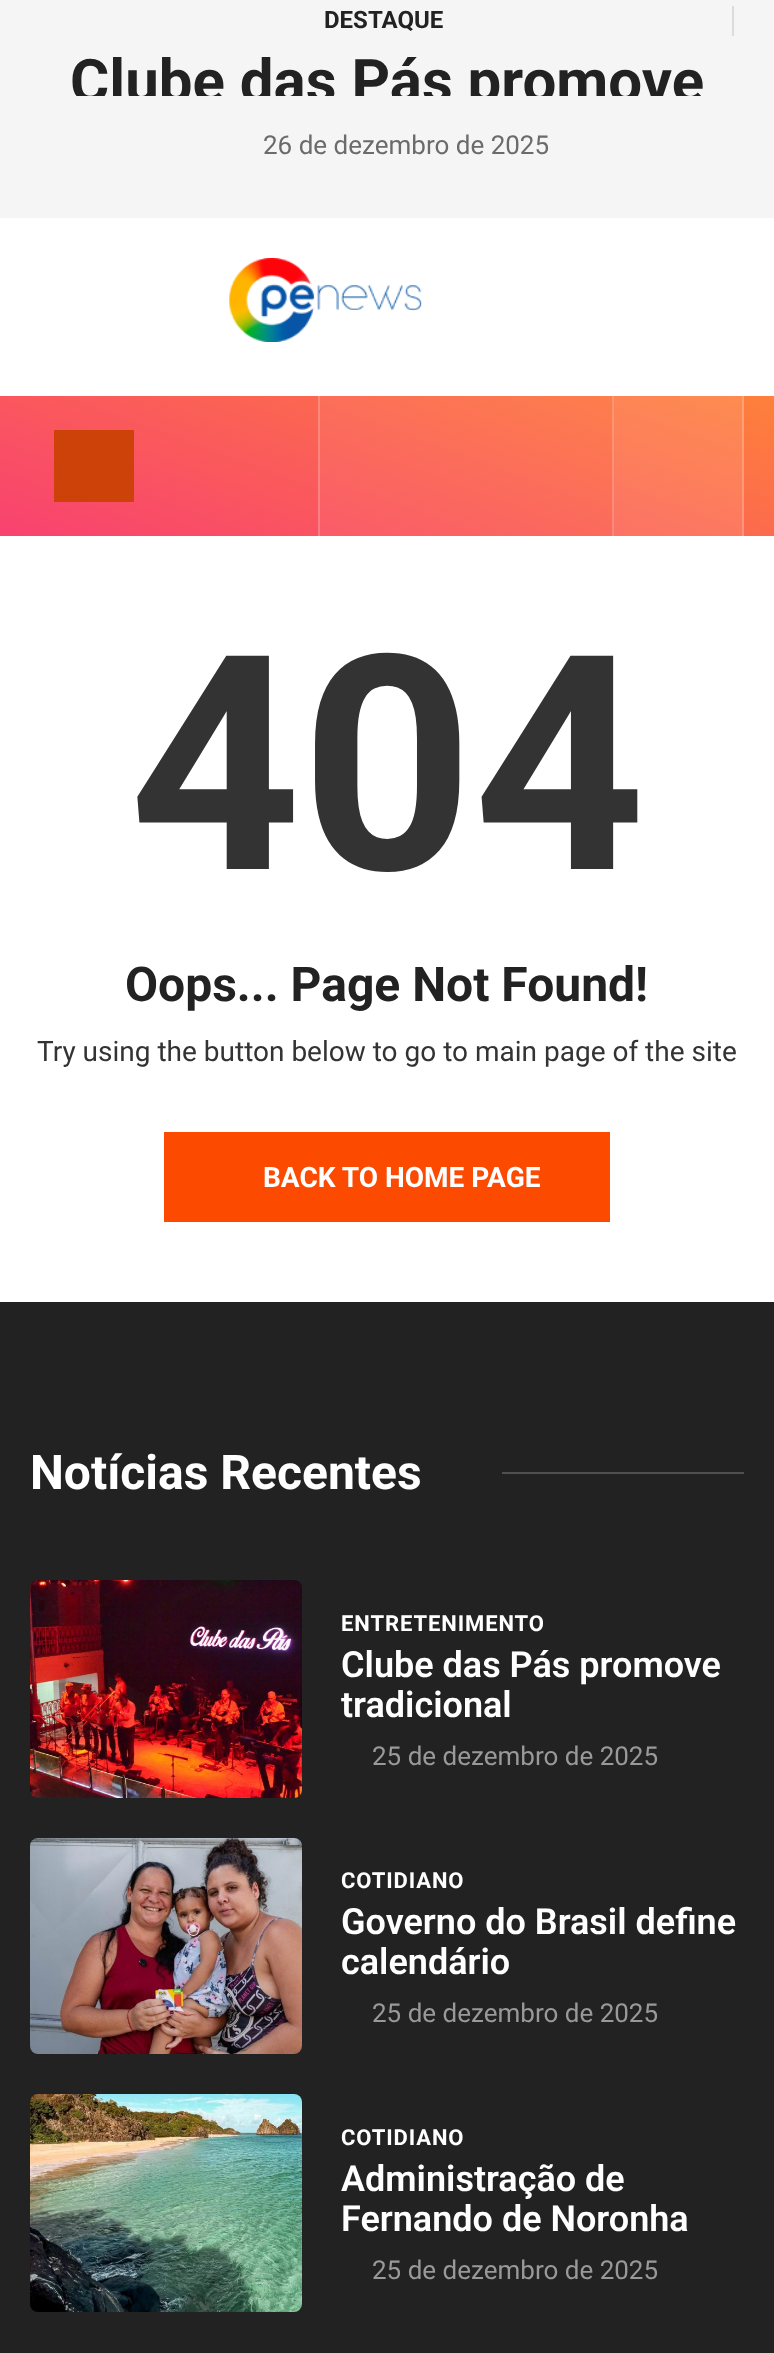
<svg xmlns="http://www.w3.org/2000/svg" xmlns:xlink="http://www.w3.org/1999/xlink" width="774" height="2353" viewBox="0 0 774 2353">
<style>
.cls-1{font:bold 24px Roboto;fill:#222222}
.cls-2{font:bold 60px Roboto;fill:#222222}
.cls-3{font:26px Roboto;fill:#6b6b6b}
.cls-4{font:bold 300px Roboto;fill:#333333}
.cls-5{font:bold 48px Roboto;fill:#222222}
.cls-6{font:28px Roboto;fill:#333333}
.cls-7{font:bold 28px Roboto;fill:#ffffff}
.cls-8{font:bold 48px Roboto;fill:#ffffff}
.cls-9{font:bold 22px Roboto;letter-spacing:0.9px;fill:#ffffff}
.cls-10{font:600 36px Roboto;fill:#ffffff}
.cls-11{font:26px Roboto;fill:#999999}
</style>
<defs>
<linearGradient id="g1" gradientUnits="userSpaceOnUse" x1="319" y1="652" x2="455" y2="280"><stop offset="0" stop-color="#f84270"/><stop offset="1" stop-color="#fe803b"/></linearGradient>
<linearGradient id="g2" gradientUnits="userSpaceOnUse" x1="319" y1="652" x2="455" y2="280"><stop offset="0" stop-color="#f9557e"/><stop offset="1" stop-color="#fe8d4f"/></linearGradient>
<linearGradient id="g3" gradientUnits="userSpaceOnUse" x1="319" y1="652" x2="455" y2="280"><stop offset="0" stop-color="#fa7798"/><stop offset="1" stop-color="#fea472"/></linearGradient>
<linearGradient id="g4" gradientUnits="userSpaceOnUse" x1="319" y1="652" x2="455" y2="280"><stop offset="0" stop-color="#f84b77"/><stop offset="1" stop-color="#fe8645"/></linearGradient>
<linearGradient id="g5" gradientUnits="userSpaceOnUse" x1="319" y1="652" x2="455" y2="280"><stop offset="0" stop-color="#f96f92"/><stop offset="1" stop-color="#fe9e6a"/></linearGradient>
<clipPath id="clip1"><rect x="30" y="46" width="714" height="50"/></clipPath>
</defs>
<rect width="100%" height="100%" fill="#ffffff"/>
<rect fill="#f5f5f5" x="0" y="0" width="774" height="218"/>
<rect fill="#dedbdb" x="732" y="6" width="2" height="30"/>
<image xlink:href="image0.png" x="229" y="258" width="193" height="84"/>
<rect fill="url(#g1)" x="0" y="396" width="774" height="140"/>
<rect fill="url(#g2)" x="614" y="396" width="128" height="140"/>
<rect fill="url(#g3)" x="742" y="396" width="2" height="140"/>
<rect fill="url(#g4)" x="320" y="396" width="292" height="140"/>
<rect fill="url(#g5)" x="318" y="396" width="2" height="140"/>
<rect fill="url(#g5)" x="612" y="396" width="2" height="140"/>
<rect fill="#cc4209" x="54" y="430" width="80" height="72"/>
<rect fill="#fc4a00" x="164" y="1132" width="446" height="90"/>
<rect fill="#222222" x="0" y="1302" width="774" height="1051"/>
<rect fill="#504f4f" x="502" y="1472" width="242" height="2"/>
<image xlink:href="image1.png" x="30" y="1580" width="272" height="218"/>
<image xlink:href="image2.png" x="30" y="1838" width="272" height="216"/>
<image xlink:href="image3.png" x="30" y="2094" width="272" height="218"/>
<text class="cls-1" x="324" y="28">DESTAQUE</text>
<g clip-path="url(#clip1)">
<text class="cls-2" x="70" y="102">Clube das Pás promove</text>
</g>
<text class="cls-3" x="263" y="154">26 de dezembro de 2025</text>
<text class="cls-4" x="129" y="869">404</text>
<text class="cls-5" x="125" y="1001">Oops... Page Not Found!</text>
<text class="cls-6" x="37" y="1061">Try using the button below to go to main page of the site</text>
<text class="cls-7" x="263" y="1187">BACK TO HOME PAGE</text>
<text class="cls-8" x="30" y="1489">Notícias Recentes</text>
<text class="cls-9" x="341" y="1631">ENTRETENIMENTO</text>
<text class="cls-10"><tspan x="341" y="1677">Clube das Pás promove</tspan><tspan x="341" y="1717">tradicional</tspan></text>
<text class="cls-11" x="372" y="1765">25 de dezembro de 2025</text>
<text class="cls-9" x="341" y="1888">COTIDIANO</text>
<text class="cls-10"><tspan x="341" y="1934">Governo do Brasil define</tspan><tspan x="341" y="1974">calendário</tspan></text>
<text class="cls-11" x="372" y="2022">25 de dezembro de 2025</text>
<text class="cls-9" x="341" y="2145">COTIDIANO</text>
<text class="cls-10"><tspan x="341" y="2191">Administração de</tspan><tspan x="341" y="2231">Fernando de Noronha</tspan></text>
<text class="cls-11" x="372" y="2279">25 de dezembro de 2025</text>
</svg>
